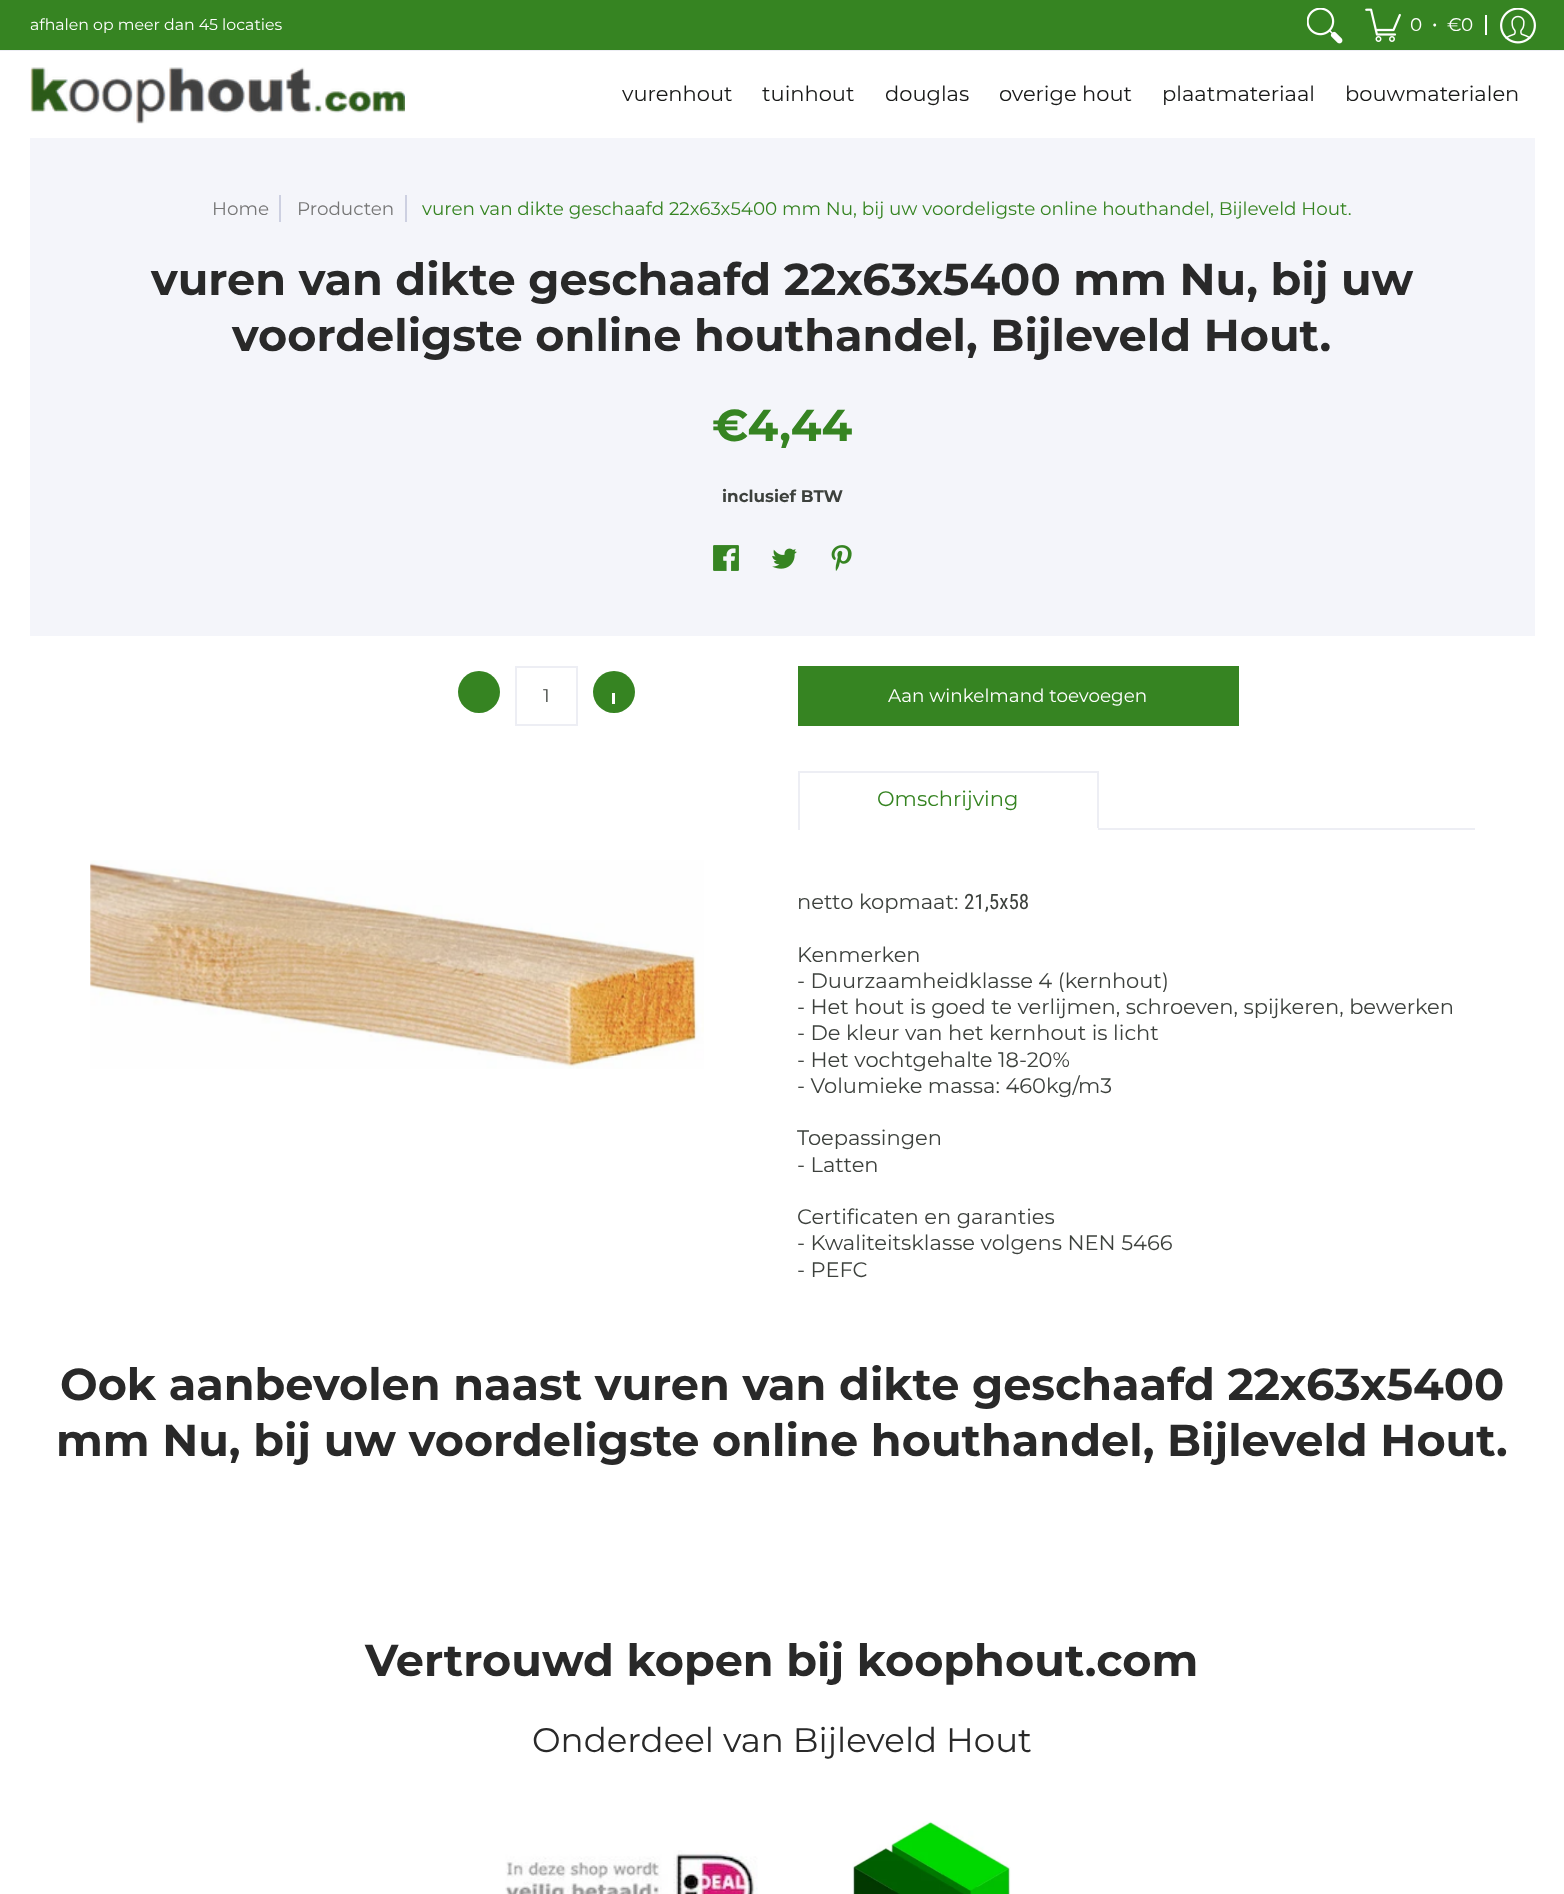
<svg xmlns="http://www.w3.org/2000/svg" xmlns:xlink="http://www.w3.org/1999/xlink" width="1564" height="1894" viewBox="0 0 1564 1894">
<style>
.cls-1{font:15.75px Montserrat;fill:#ffffff}
.cls-2{font:18.38px Montserrat;fill:#ffffff}
.cls-3{font:21px Montserrat;fill:#181918}
.cls-4{font:18.38px Montserrat;fill:#767676}
.cls-5{font:18.38px Montserrat;fill:#368422}
.cls-6{font:bold 44.6px Montserrat;fill:#292929}
.cls-7{font:bold 44.6px Montserrat;fill:#368422}
.cls-8{font:bold 16.75px Montserrat;fill:#3d413d}
.cls-9{font:18.38px Montserrat;fill:#3d413d}
.cls-10{font:21px Montserrat;fill:#368422}
.cls-11{font:21px Montserrat;fill:#3d413d}
.cls-12{font:21px Roboto Condensed;fill:#3d413d}
.cls-13{font:34.1px Montserrat;fill:#292929}
</style>
<rect width="100%" height="100%" fill="#ffffff"/>
<rect fill="#368422" x="0" y="0" width="1564" height="50"/>
<rect fill="#edeef4" x="0" y="50" width="1564" height="1"/>
<image xlink:href="image0.png" x="1307" y="8" width="36" height="36"/>
<image xlink:href="image1.png" x="1365" y="8" width="36" height="34"/>
<rect fill="#ffffff" x="1485" y="15" width="2" height="20"/>
<image xlink:href="image2.png" x="1500" y="8" width="36" height="36"/>
<image xlink:href="image3.png" x="30" y="67" width="375" height="57"/>
<rect fill="#f4f5fa" x="30" y="138" width="1505" height="498"/>
<rect fill="#cdd0e1" x="279" y="195" width="2" height="27"/>
<rect fill="#cdd0e1" x="405" y="195" width="2" height="27"/>
<image xlink:href="image4.png" x="713" y="545" width="26" height="26"/>
<image xlink:href="image5.png" x="772" y="548" width="25" height="21"/>
<image xlink:href="image6.png" x="831" y="545" width="21" height="26"/>
<circle fill="#368422" cx="479" cy="692" r="21"/>
<rect fill="none" stroke="#edeef4" stroke-width="2" x="516" y="667" width="61" height="58"/>
<circle fill="#368422" cx="614" cy="692" r="21"/>
<rect fill="#ffffff" x="612" y="693" width="3" height="11"/>
<rect fill="#368422" x="798" y="666" width="441" height="60"/>
<image xlink:href="image7.png" x="90" y="860" width="614" height="209"/>
<rect fill="#edeef4" x="798" y="771" width="300" height="2"/>
<rect fill="#edeef4" x="1097" y="771" width="2" height="59"/>
<rect fill="#ffffff" x="1097" y="828" width="1" height="2"/>
<rect fill="#edeef4" x="798" y="771" width="2" height="59"/>
<rect fill="#edeef4" x="1099" y="828" width="376" height="2"/>
<image xlink:href="image8.png" x="505" y="1850" width="253" height="44"/>
<image xlink:href="image9.png" x="852" y="1821" width="159" height="73"/>
<text class="cls-1" x="30" y="30">afhalen op meer dan 45 locaties</text>
<text class="cls-2" x="1410" y="31">0</text>
<text class="cls-2" x="1432" y="30">•</text>
<text class="cls-2" x="1447" y="31">€0</text>
<text class="cls-3" x="622" y="101">vurenhout</text>
<text class="cls-3" x="762" y="101">tuinhout</text>
<text class="cls-3" x="885" y="101">douglas</text>
<text class="cls-3" x="999" y="101">overige hout</text>
<text class="cls-3" x="1162" y="101">plaatmateriaal</text>
<text class="cls-3" x="1345" y="101">bouwmaterialen</text>
<text class="cls-4" x="212" y="215">Home</text>
<text class="cls-4" x="297" y="215">Producten</text>
<text class="cls-5" x="422" y="215">vuren van dikte geschaafd 22x63x5400 mm Nu, bij uw voordeligste online houthandel, Bijleveld Hout.</text>
<text class="cls-6" x="151" y="295">vuren van dikte geschaafd 22x63x5400 mm Nu, bij uw</text>
<text class="cls-6" x="232" y="351">voordeligste online houthandel, Bijleveld Hout.</text>
<text class="cls-7" x="712" y="441">€4,44</text>
<text class="cls-8" x="722" y="502">inclusief BTW</text>
<text class="cls-9" x="543" y="702">1</text>
<text class="cls-2" x="888" y="702">Aan winkelmand toevoegen</text>
<text class="cls-10" x="877" y="806">Omschrijving</text>
<text class="cls-11" x="797" y="909">netto kopmaat:</text>
<text class="cls-12" x="964" y="909">21,5x58</text>
<text class="cls-11"><tspan x="797" y="962">Kenmerken</tspan><tspan x="797" y="988">- Duurzaamheidklasse 4 (kernhout)</tspan><tspan x="797" y="1014">- Het hout is goed te verlijmen, schroeven, spijkeren, bewerken</tspan><tspan x="797" y="1040">- De kleur van het kernhout is licht</tspan><tspan x="797" y="1067">- Het vochtgehalte 18-20%</tspan><tspan x="797" y="1093">- Volumieke massa: 460kg/m3</tspan></text>
<text class="cls-11"><tspan x="797" y="1145">Toepassingen</tspan><tspan x="797" y="1172">- Latten</tspan></text>
<text class="cls-11"><tspan x="797" y="1224">Certificaten en garanties</tspan><tspan x="797" y="1250">- Kwaliteitsklasse volgens NEN 5466</tspan><tspan x="797" y="1277">- PEFC</tspan></text>
<text class="cls-6" x="60" y="1400">Ook aanbevolen naast vuren van dikte geschaafd 22x63x5400</text>
<text class="cls-6" x="56" y="1456">mm Nu, bij uw voordeligste online houthandel, Bijleveld Hout.</text>
<text class="cls-6" x="365" y="1676">Vertrouwd kopen bij koophout.com</text>
<text class="cls-13" x="532" y="1752">Onderdeel van Bijleveld Hout</text>
</svg>
